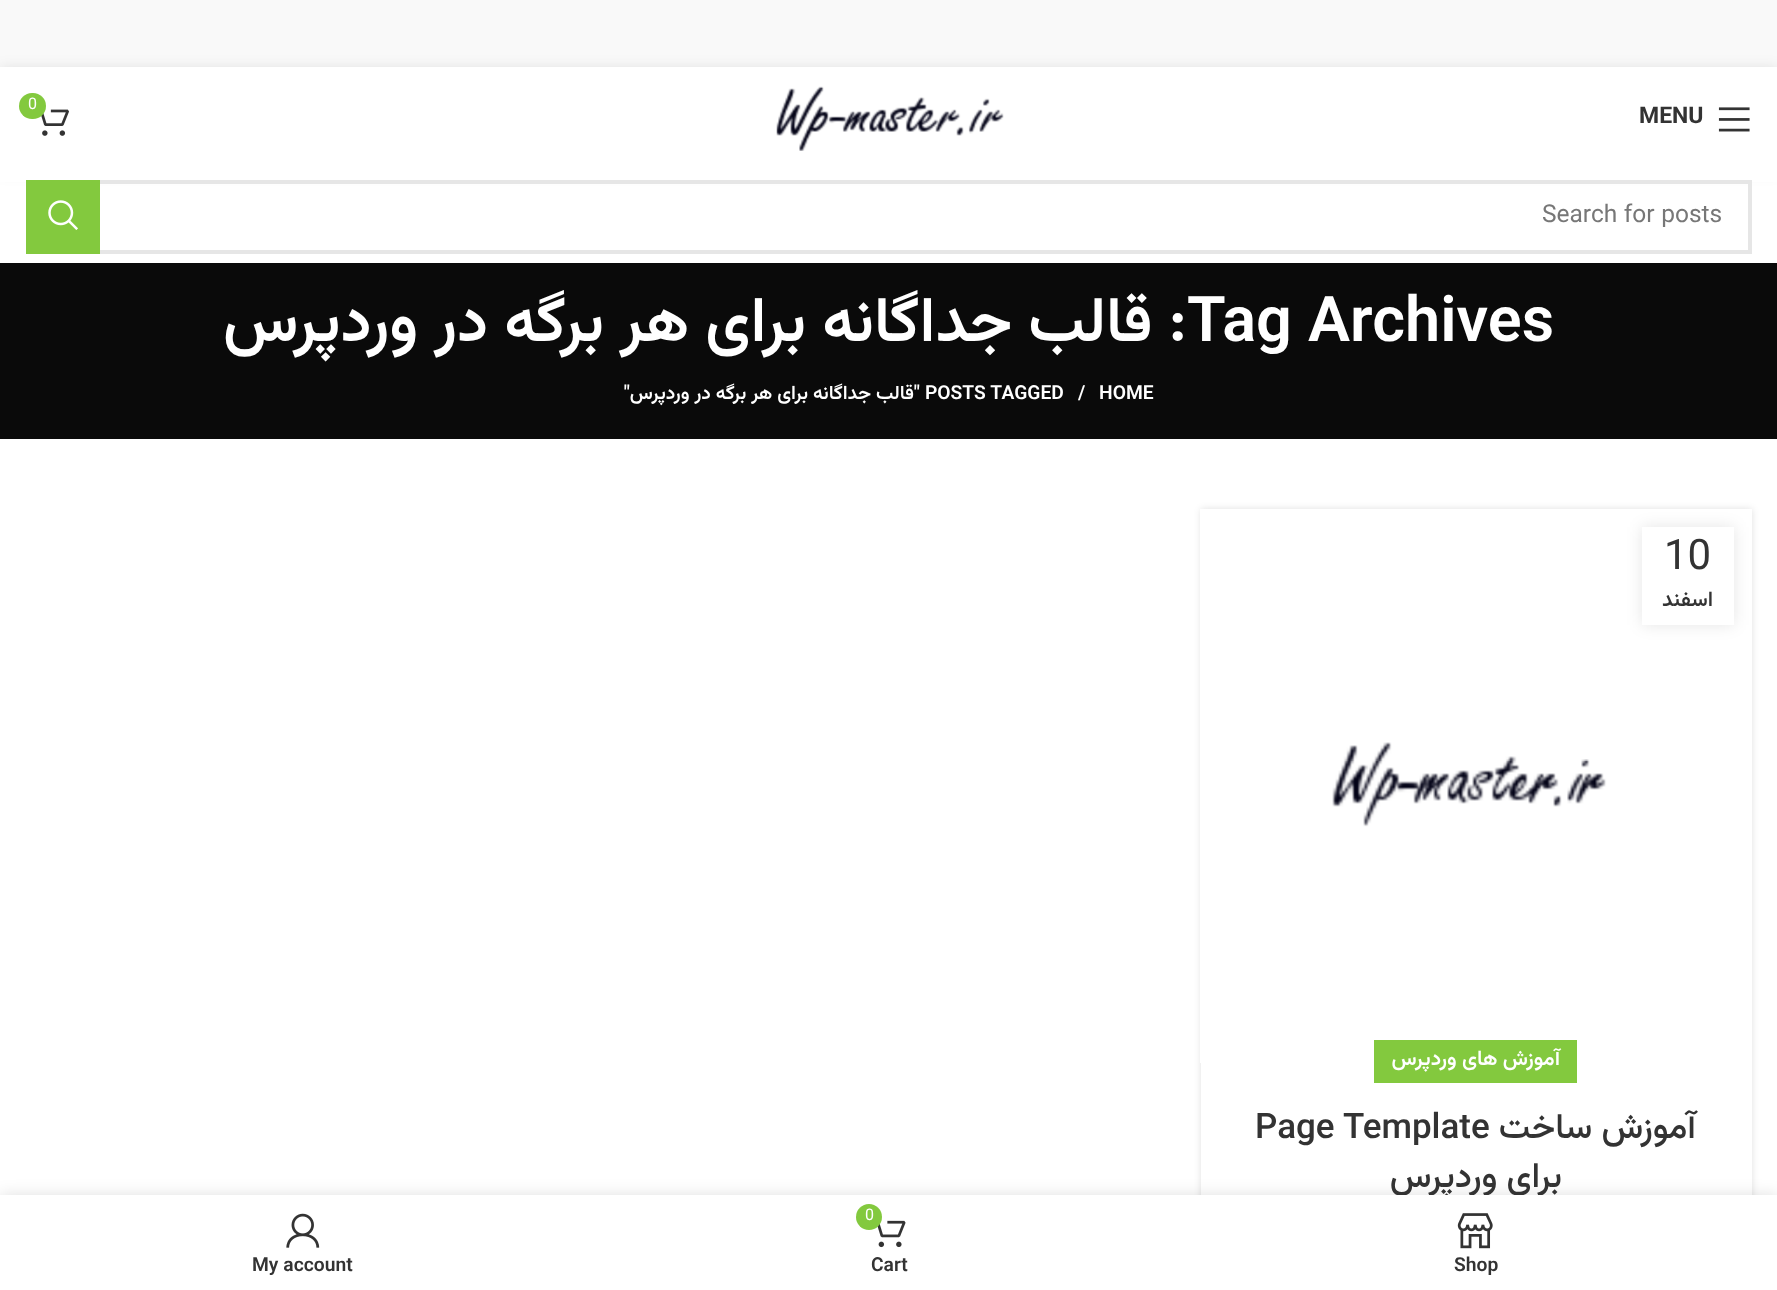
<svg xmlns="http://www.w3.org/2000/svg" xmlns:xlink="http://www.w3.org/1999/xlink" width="1777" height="1290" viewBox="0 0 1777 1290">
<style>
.cls-1{font:16px Vazirmatn;fill:#ffffff}
.cls-2{font:bold 23px Vazirmatn;fill:#333333}
.cls-3{font:24.5px Vazirmatn;fill:#777777}
.cls-4{font:600 63px Vazirmatn;fill:#ffffff}
.cls-5{font:600 63px Vazirmatn;direction:rtl;fill:#ffffff}
.cls-6{font:600 19.25px Vazirmatn;fill:#ffffff}
.cls-7{font:600 19.25px Vazirmatn;direction:rtl;fill:#ffffff}
.cls-8{font:42px Vazirmatn;fill:#333333}
.cls-9{font:600 21px Vazirmatn;direction:rtl;fill:#333333}
.cls-10{font:600 21px Vazirmatn;direction:rtl;fill:#ffffff}
.cls-11{font:500 35px Vazirmatn;direction:rtl;fill:#333333}
.cls-12{font:500 35px Vazirmatn;fill:#333333}
.cls-13{font:600 19.25px Vazirmatn;fill:#333333}
</style>
<rect width="100%" height="100%" fill="#ffffff"/>
<rect fill="#f9f9f9" x="0" y="0" width="1777" height="67"/>
<rect fill="#000000" fill-opacity="0.1" filter="blur(7px)" x="0" y="68" width="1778" height="105"/>
<rect fill="#ffffff" x="0" y="67" width="1777" height="115"/>
<image xlink:href="image0.png" x="776" y="86" width="228" height="65"/>
<image xlink:href="image1.png" x="41" y="109" width="28" height="27"/>
<rect fill="#83c93e" x="19" y="93" width="27" height="26" rx="13"/>
<image xlink:href="image2.png" x="1718" y="107" width="32" height="25"/>
<rect fill="none" stroke="#e6e6e6" stroke-width="4" x="28" y="182" width="1722" height="70"/>
<rect fill="#83c93e" x="26" y="180" width="74" height="74"/>
<image xlink:href="image3.png" x="48" y="200" width="30" height="30"/>
<rect fill="#0a0a0a" x="0" y="263" width="1777" height="176"/>
<rect fill="#000000" fill-opacity="0.12" filter="blur(3.5px)" x="1201" y="509" width="551" height="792"/>
<image xlink:href="image4.png" x="1200" y="509" width="552" height="554"/>
<rect fill="#000000" fill-opacity="0.1" filter="blur(8px)" x="1642" y="527" width="92" height="98"/>
<rect fill="#ffffff" x="1642" y="527" width="92" height="98"/>
<rect fill="#ffffff" x="1201" y="1063" width="551" height="132"/>
<rect fill="#83c93e" x="1374" y="1040" width="203" height="43"/>
<rect fill="#000000" fill-opacity="0.12" filter="blur(8px)" x="0" y="1195" width="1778" height="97"/>
<text class="cls-1" x="28" y="109">0</text>
<text class="cls-2" x="1639" y="123">MENU</text>
<text class="cls-3" x="1542" y="222">Search for posts</text>
<text class="cls-4" x="1187" y="341">Tag Archives</text>
<text class="cls-5" x="1187" y="341">: قالب جداگانه برای هر برگه در وردپرس</text>
<text class="cls-6" x="1099" y="399">HOME</text>
<text class="cls-6" x="1078" y="399">/</text>
<text class="cls-6" x="925" y="399">POSTS TAGGED</text>
<text class="cls-7" x="920" y="399">"قالب جداگانه برای هر برگه در وردپرس"</text>
<text class="cls-8" x="1664" y="569">10</text>
<text class="cls-9" x="1713" y="606">اسفند</text>
<text class="cls-10" x="1560" y="1065">آموزش های وردپرس</text>
<text class="cls-11" x="1696" y="1138">آموزش ساخت</text>
<text class="cls-12" x="1255" y="1138">Page Template</text>
<text class="cls-11" x="1562" y="1187">برای وردپرس</text>
<rect fill="#ffffff" x="0" y="1195" width="1777" height="95"/>
<image xlink:href="image5.png" x="1457" y="1213" width="36" height="36"/>
<text class="cls-13" x="1454" y="1271">Shop</text>
<image xlink:href="image6.png" x="877" y="1220" width="29" height="28"/>
<circle fill="#83c93e" cx="869" cy="1217" r="13"/>
<text class="cls-1" x="865" y="1220">0</text>
<text class="cls-13" x="871" y="1271">Cart</text>
<image xlink:href="image7.png" x="286" y="1213" width="34" height="35"/>
<text class="cls-13" x="252" y="1271">My account</text>
</svg>
